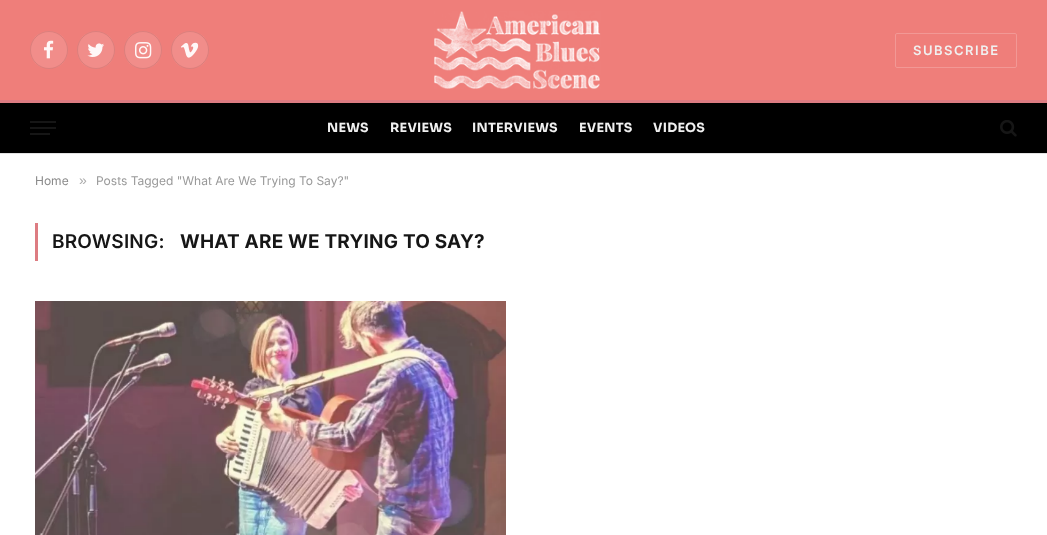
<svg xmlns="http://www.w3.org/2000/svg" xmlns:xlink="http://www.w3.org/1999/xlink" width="1047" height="535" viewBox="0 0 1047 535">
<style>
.cls-1{font:600 13px Inter;letter-spacing:1.5px;fill:#f0f0f0}
.cls-2{font:bold 12.75px Sora;letter-spacing:0.25px;fill:#f0f0f0}
.cls-3{font:12px Inter;fill:#8a8a8a}
.cls-4{font:14px Liberation Sans;fill:#adadad}
.cls-5{font:12px Inter;fill:#999999}
.cls-6{font:600 19px Inter;letter-spacing:0.2px;fill:#161616}
.cls-7{font:bold 19px Inter;letter-spacing:0.2px;fill:#161616}
</style>
<rect width="100%" height="100%" fill="#ffffff"/>
<rect fill="#ef7e7a" x="0" y="0" width="1047" height="100"/>
<circle fill="#f18d8a" cx="49" cy="50" r="19"/>
<circle fill="none" stroke="#000000" stroke-opacity="0.09" cx="49" cy="50" r="18.5"/>
<image xlink:href="image0.png" x="44" y="40" width="10" height="19"/>
<circle fill="#f18d8a" cx="96" cy="50" r="19"/>
<circle fill="none" stroke="#000000" stroke-opacity="0.09" cx="96" cy="50" r="18.5"/>
<image xlink:href="image1.png" x="87" y="43" width="17" height="14"/>
<circle fill="#f18d8a" cx="143" cy="50" r="19"/>
<circle fill="none" stroke="#000000" stroke-opacity="0.09" cx="143" cy="50" r="18.5"/>
<image xlink:href="image2.png" x="135" y="42" width="17" height="17"/>
<circle fill="#f18d8a" cx="190" cy="50" r="19"/>
<circle fill="none" stroke="#000000" stroke-opacity="0.09" cx="190" cy="50" r="18.5"/>
<image xlink:href="image3.png" x="181" y="42" width="18" height="16"/>
<image xlink:href="image4.png" x="434" y="11" width="167" height="78"/>
<rect fill="none" stroke="#f29895" x="895.5" y="33.5" width="121" height="34" rx="1.5"/>
<rect fill="#000000" x="0" y="103" width="1047" height="50"/>
<rect fill="#dd7c82" x="0" y="100" width="1047" height="3"/>
<rect fill="#e2e2e2" x="0" y="153" width="1047" height="1"/>
<rect fill="#161616" x="30" y="133" width="20" height="2"/>
<rect fill="#161616" x="30" y="121" width="26" height="2"/>
<rect fill="#161616" x="30" y="127" width="26" height="2"/>
<image xlink:href="image5.png" x="1000" y="120" width="17" height="17"/>
<rect fill="#dd7c82" x="35" y="223" width="3" height="38"/>
<image xlink:href="image6.png" x="35" y="301" width="471" height="234"/>
<text class="cls-1" x="913" y="55">SUBSCRIBE</text>
<text class="cls-2" x="327" y="132">NEWS</text>
<text class="cls-2" x="390" y="132">REVIEWS</text>
<text class="cls-2" x="472" y="132">INTERVIEWS</text>
<text class="cls-2" x="579" y="132">EVENTS</text>
<text class="cls-2" x="653" y="132">VIDEOS</text>
<text class="cls-3" x="35" y="185">Home</text>
<text class="cls-4" x="79" y="185">»</text>
<text class="cls-5" x="96" y="185">Posts Tagged "What Are We Trying To Say?"</text>
<text class="cls-6" x="52" y="248">BROWSING:</text>
<text class="cls-7" x="180" y="248">WHAT ARE WE TRYING TO SAY?</text>
</svg>
